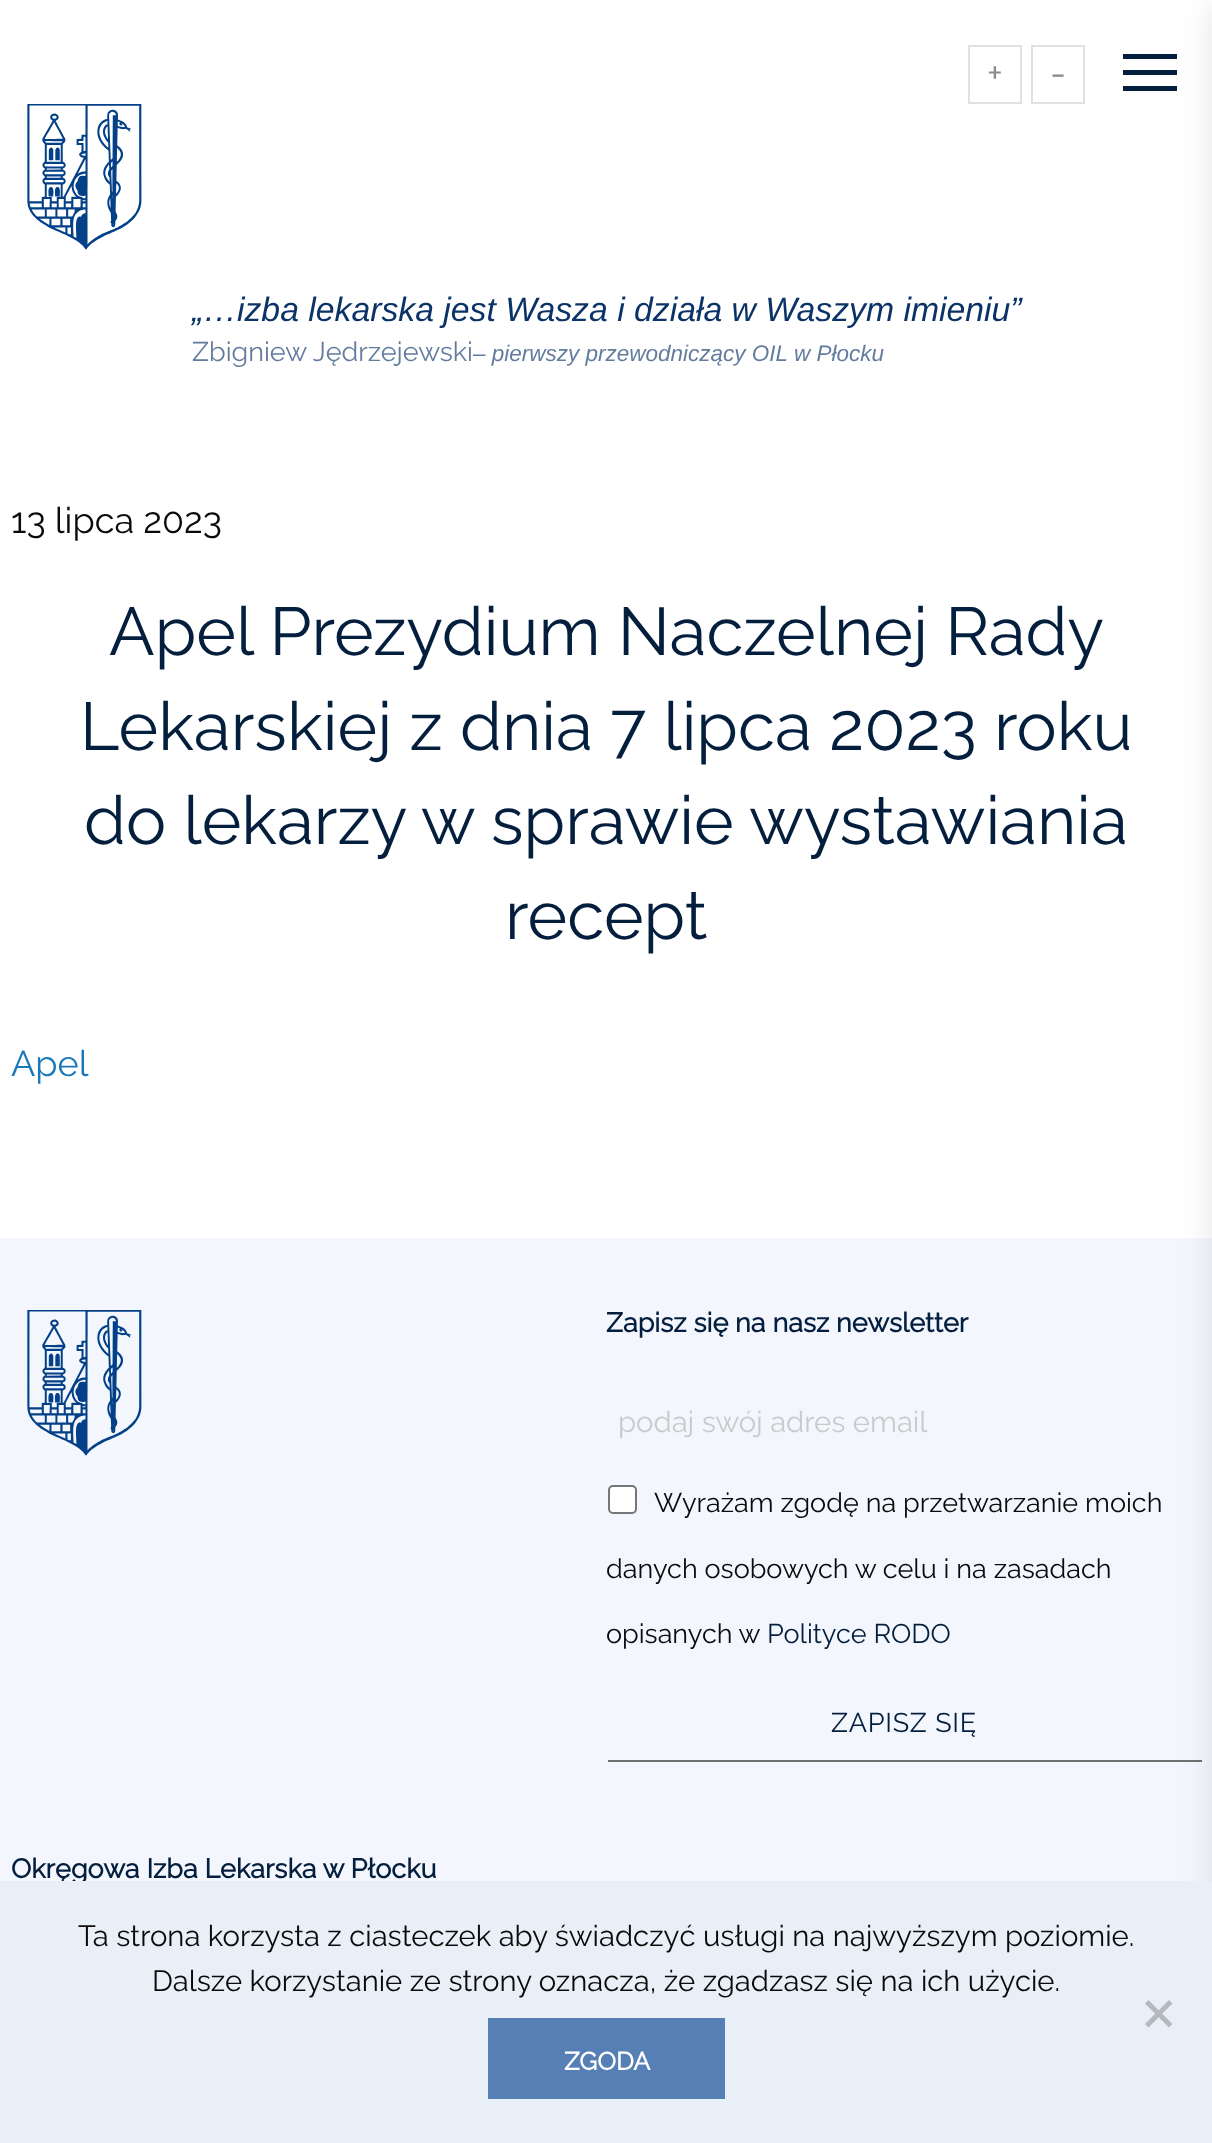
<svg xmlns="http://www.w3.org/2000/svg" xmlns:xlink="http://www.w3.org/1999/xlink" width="1212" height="2143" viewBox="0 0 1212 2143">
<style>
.cls-1{font:100 38px Raleway;fill:#8d8d8d}
.cls-2{font:italic 33.75px Liberation Sans;fill:#0b3367}
.cls-3{font:100 27px Raleway;fill:#637c9e}
.cls-4{font:italic 22.5px Liberation Sans;fill:#637c9e}
.cls-5{font:100 36px Raleway;fill:#0a0a0a}
.cls-6{font:100 67.5px Raleway;fill:#041e3d}
.cls-7{font:100 36px Raleway;fill:#1779ba}
.cls-8{font:bold 27px Raleway;fill:#041e3d}
.cls-9{font:100 29.25px Raleway;fill:#cacaca}
.cls-10{font:100 27px Raleway;fill:#0a0a0a}
.cls-11{font:100 27px Raleway;fill:#041e3d}
.cls-12{font:100 27px Raleway;letter-spacing:0.75px;fill:#041e3d}
.cls-13{font:100 29.25px Raleway;fill:#0a0a0a}
.cls-14{font:bold 25px Raleway;fill:#ffffff}
</style>
<rect width="100%" height="100%" fill="#ffffff"/>
<rect fill="none" stroke="#e1e1e1" stroke-width="2" x="969" y="46" width="52" height="57"/>
<rect fill="none" stroke="#e1e1e1" stroke-width="2" x="1032" y="46" width="52" height="57"/>
<image xlink:href="image0.png" x="27" y="104" width="115" height="146"/>
<rect fill="#f3f7fd" x="0" y="1238" width="1212" height="643"/>
<rect fill="#707070" x="608" y="1760" width="594" height="2"/>
<rect fill="#000000" fill-opacity="0.11" filter="blur(16px)" x="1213" y="7" width="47" height="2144"/>
<rect fill="#041e3d" x="1123" y="54" width="54" height="5"/>
<rect fill="#041e3d" x="1123" y="70" width="54" height="5"/>
<rect fill="#041e3d" x="1123" y="86" width="54" height="5"/>
<image xlink:href="image1.png" x="27" y="1310" width="115" height="146"/>
<rect fill="#ffffff" stroke="#767676" stroke-width="2" x="609" y="1486" width="27" height="27" rx="4"/>
<text class="cls-1" x="987" y="86">+</text>
<text class="cls-1" x="1050" y="86">-</text>
<text class="cls-2" x="192" y="321">„…izba lekarska jest Wasza i działa w Waszym imieniu”</text>
<text class="cls-3" x="192" y="361">Zbigniew Jędrzejewski</text>
<text class="cls-4" x="473" y="361">– pierwszy przewodniczący OIL w Płocku</text>
<text class="cls-5" x="11" y="533">13 lipca 2023</text>
<text class="cls-6" x="109" y="655">Apel Prezydium Naczelnej Rady</text>
<text class="cls-6" x="80" y="750">Lekarskiej z dnia 7 lipca 2023 roku</text>
<text class="cls-6" x="84" y="844">do lekarzy w sprawie wystawiania</text>
<text class="cls-6" x="505" y="939">recept</text>
<text class="cls-7" x="11" y="1076">Apel</text>
<text class="cls-8" x="606" y="1332">Zapisz się na nasz newsletter</text>
<text class="cls-9" x="618" y="1432">podaj swój adres email</text>
<text class="cls-10" x="654" y="1512">Wyrażam zgodę na przetwarzanie moich</text>
<text class="cls-10" x="606" y="1578">danych osobowych w celu i na zasadach</text>
<text class="cls-10" x="606" y="1643">opisanych w</text>
<text class="cls-11" x="767" y="1643">Polityce RODO</text>
<text class="cls-12" x="831" y="1732">ZAPISZ SIĘ</text>
<text class="cls-8" x="11" y="1878">Okręgowa Izba Lekarska w Płocku</text>
<rect fill="#e9eff7" x="0" y="1881" width="1212" height="262"/>
<text class="cls-13" x="78" y="1946">Ta strona korzysta z ciasteczek aby świadczyć usługi na najwyższym poziomie.</text>
<text class="cls-13" x="152" y="1991">Dalsze korzystanie ze strony oznacza, że zgadzasz się na ich użycie.</text>
<path fill="#b5b8bc" d="M1169 2000L1172.5 2003.5L1148.5 2027.5L1145 2024Z"/>
<path fill="#b5b8bc" d="M1145 2003.5L1148.5 2000L1172.5 2024L1169 2027.5Z"/>
<rect fill="#567fb5" x="488" y="2018" width="237" height="81"/>
<text class="cls-14" x="564" y="2070">ZGODA</text>
</svg>
